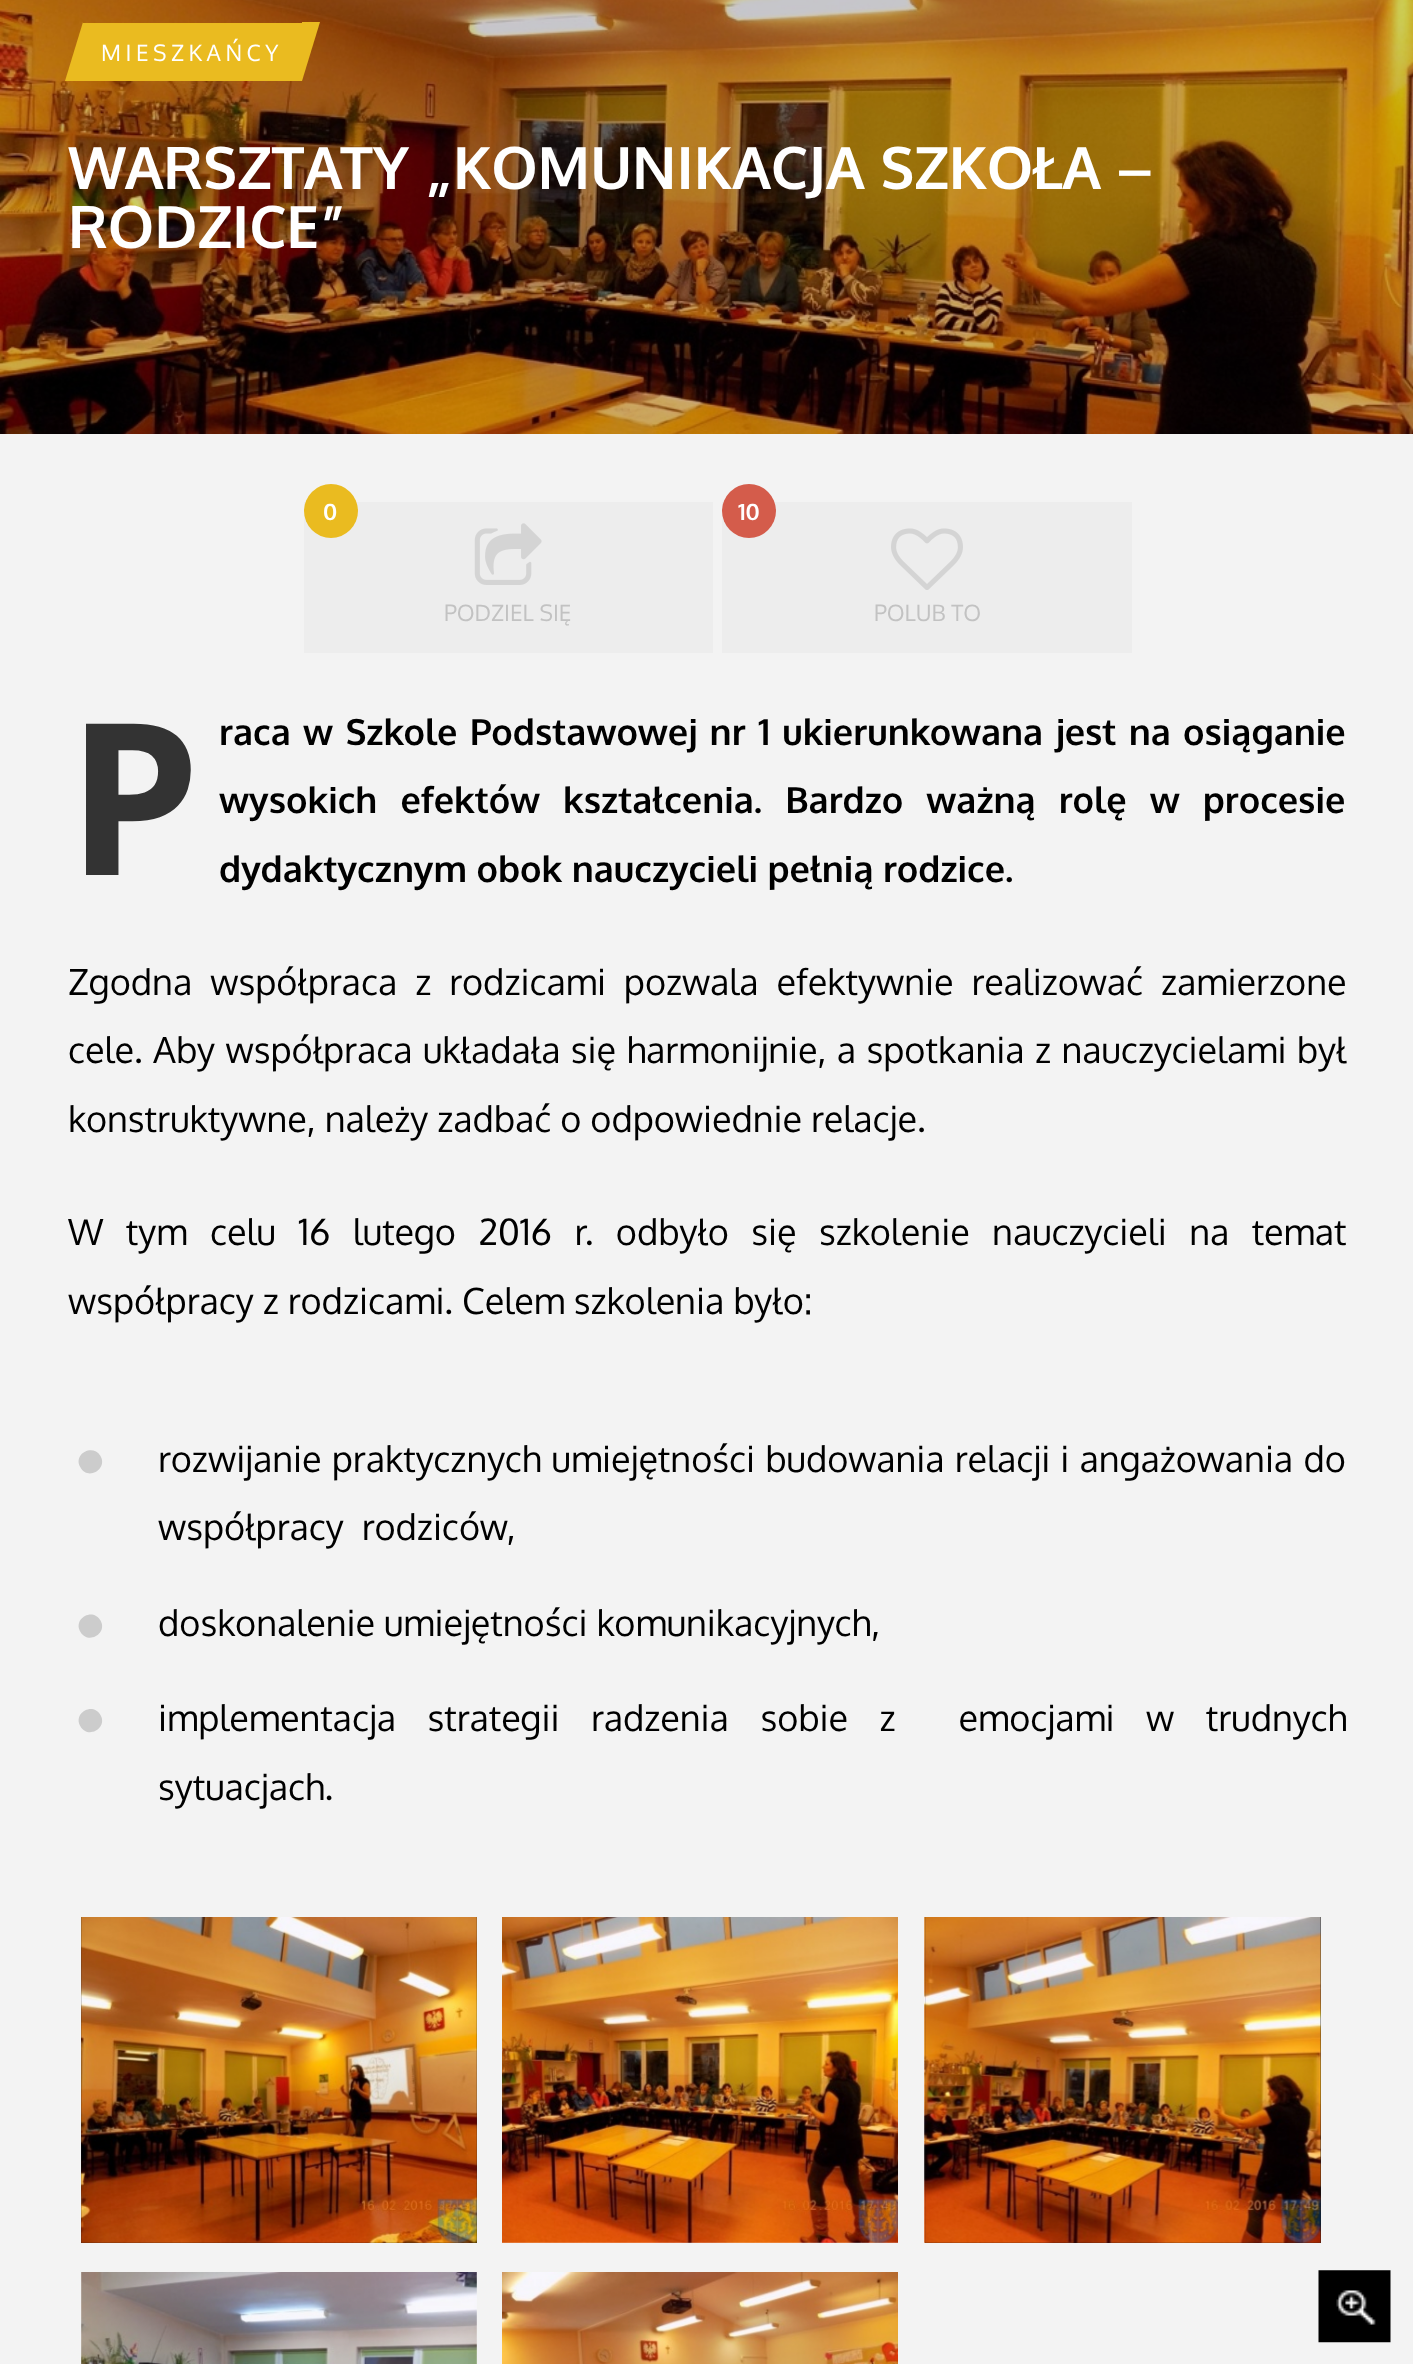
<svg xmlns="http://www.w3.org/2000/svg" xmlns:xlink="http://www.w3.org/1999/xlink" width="1413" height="2364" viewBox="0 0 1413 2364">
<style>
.cls-1{font:22.5px Oxygen;letter-spacing:4.5px;fill:#ffffff}
.cls-2{font:bold 58.5px Oxygen;fill:#ffffff}
.cls-3{font:bold 22.5px Oxygen;fill:#ffffff}
.cls-4{font:22.5px Oxygen;fill:#c2c2c2}
.cls-5{font:bold 212px Noto Sans;fill:#333333}
.cls-6{font:bold 36px Oxygen;fill:#000000}
.cls-7{font:36px Oxygen;fill:#000000}
</style>
<rect width="100%" height="100%" fill="#f3f3f3"/>
<image xlink:href="image0.png" x="0" y="0" width="1413" height="434"/>
<rect fill="#eabb20" x="83" y="23" width="219" height="58"/>
<path fill="#eabb20" d="M83 22V81H65Z"/>
<path fill="#eabb20" d="M302 81V22H320Z"/>
<rect fill="#ededed" x="304" y="502" width="409" height="151"/>
<circle fill="#eabb20" cx="331" cy="511" r="27"/>
<image xlink:href="image1.png" x="474" y="523" width="68" height="62"/>
<rect fill="#ededed" x="722" y="502" width="410" height="151"/>
<circle fill="#d45c4b" cx="749" cy="511" r="27"/>
<image xlink:href="image2.png" x="891" y="528" width="72" height="62"/>
<path fill="#cccccc" d="M80.5 1467.5C72.5 1454.5 92.5 1443 100.5 1456C108 1469 88 1481 80.5 1467.5Z"/>
<path fill="#cccccc" d="M80.5 1632C72.5 1619 92.5 1607 100.5 1620.5C108 1633.5 88 1645 80.5 1632Z"/>
<path fill="#cccccc" d="M80.5 1726.5C72.5 1713.5 92.5 1701.5 100.5 1715C108 1728 88 1739.5 80.5 1726.5Z"/>
<rect fill="#222222" x="81" y="1917" width="396" height="326"/>
<image xlink:href="image3.png" x="81" y="1917" width="396" height="326"/>
<image xlink:href="image4.png" x="502" y="1917" width="396" height="326"/>
<rect fill="#222222" x="925" y="1917" width="396" height="326"/>
<image xlink:href="image5.png" x="924" y="1917" width="397" height="326"/>
<image xlink:href="image6.png" x="81" y="2272" width="396" height="92"/>
<image xlink:href="image7.png" x="502" y="2272" width="396" height="92"/>
<image xlink:href="image8.png" x="1318" y="2270" width="73" height="73"/>
<text class="cls-1" x="101" y="61">MIESZKAŃCY</text>
<text class="cls-2"><tspan x="68" y="189">WARSZTATY „KOMUNIKACJA SZKOŁA –</tspan><tspan x="68" y="248">RODZICE”</tspan></text>
<text class="cls-3" x="323" y="520">0</text>
<text class="cls-4" x="444" y="621">PODZIEL SIĘ</text>
<text class="cls-3" x="738" y="520">10</text>
<text class="cls-4" x="874" y="621">POLUB TO</text>
<text class="cls-5" x="68" y="875">P</text>
<text class="cls-6"><tspan x="219" y="745" word-spacing="2.75">raca w Szkole Podstawowej nr 1 ukierunkowana jest na osiąganie</tspan><tspan x="219" y="813" word-spacing="13.5">wysokich efektów kształcenia. Bardzo ważną rolę w procesie</tspan><tspan x="219" y="882">dydaktycznym obok nauczycieli pełnią rodzice.</tspan></text>
<text class="cls-7"><tspan x="68" y="995" word-spacing="9">Zgodna współpraca z rodzicami pozwala efektywnie realizować zamierzone</tspan><tspan x="68" y="1063" word-spacing="1.4">cele. Aby współpraca układała się harmonijnie, a spotkania z nauczycielami był</tspan><tspan x="68" y="1132">konstruktywne, należy zadbać o odpowiednie relacje.</tspan></text>
<text class="cls-7"><tspan x="68" y="1245" word-spacing="13.5">W tym celu 16 lutego 2016 r. odbyło się szkolenie nauczycieli na temat</tspan><tspan x="68" y="1314">współpracy z rodzicami. Celem szkolenia było:</tspan></text>
<text class="cls-7" xml:space="preserve"><tspan x="158" y="1472" word-spacing="1.25">rozwijanie praktycznych umiejętności budowania relacji i angażowania do</tspan><tspan x="158" y="1540">współpracy  rodziców,</tspan></text>
<text class="cls-7" x="158" y="1636">doskonalenie umiejętności komunikacyjnych,</text>
<text class="cls-7" xml:space="preserve"><tspan x="158" y="1731" word-spacing="22.5">implementacja strategii radzenia sobie z  emocjami w trudnych</tspan><tspan x="158" y="1800">sytuacjach.</tspan></text>
</svg>
